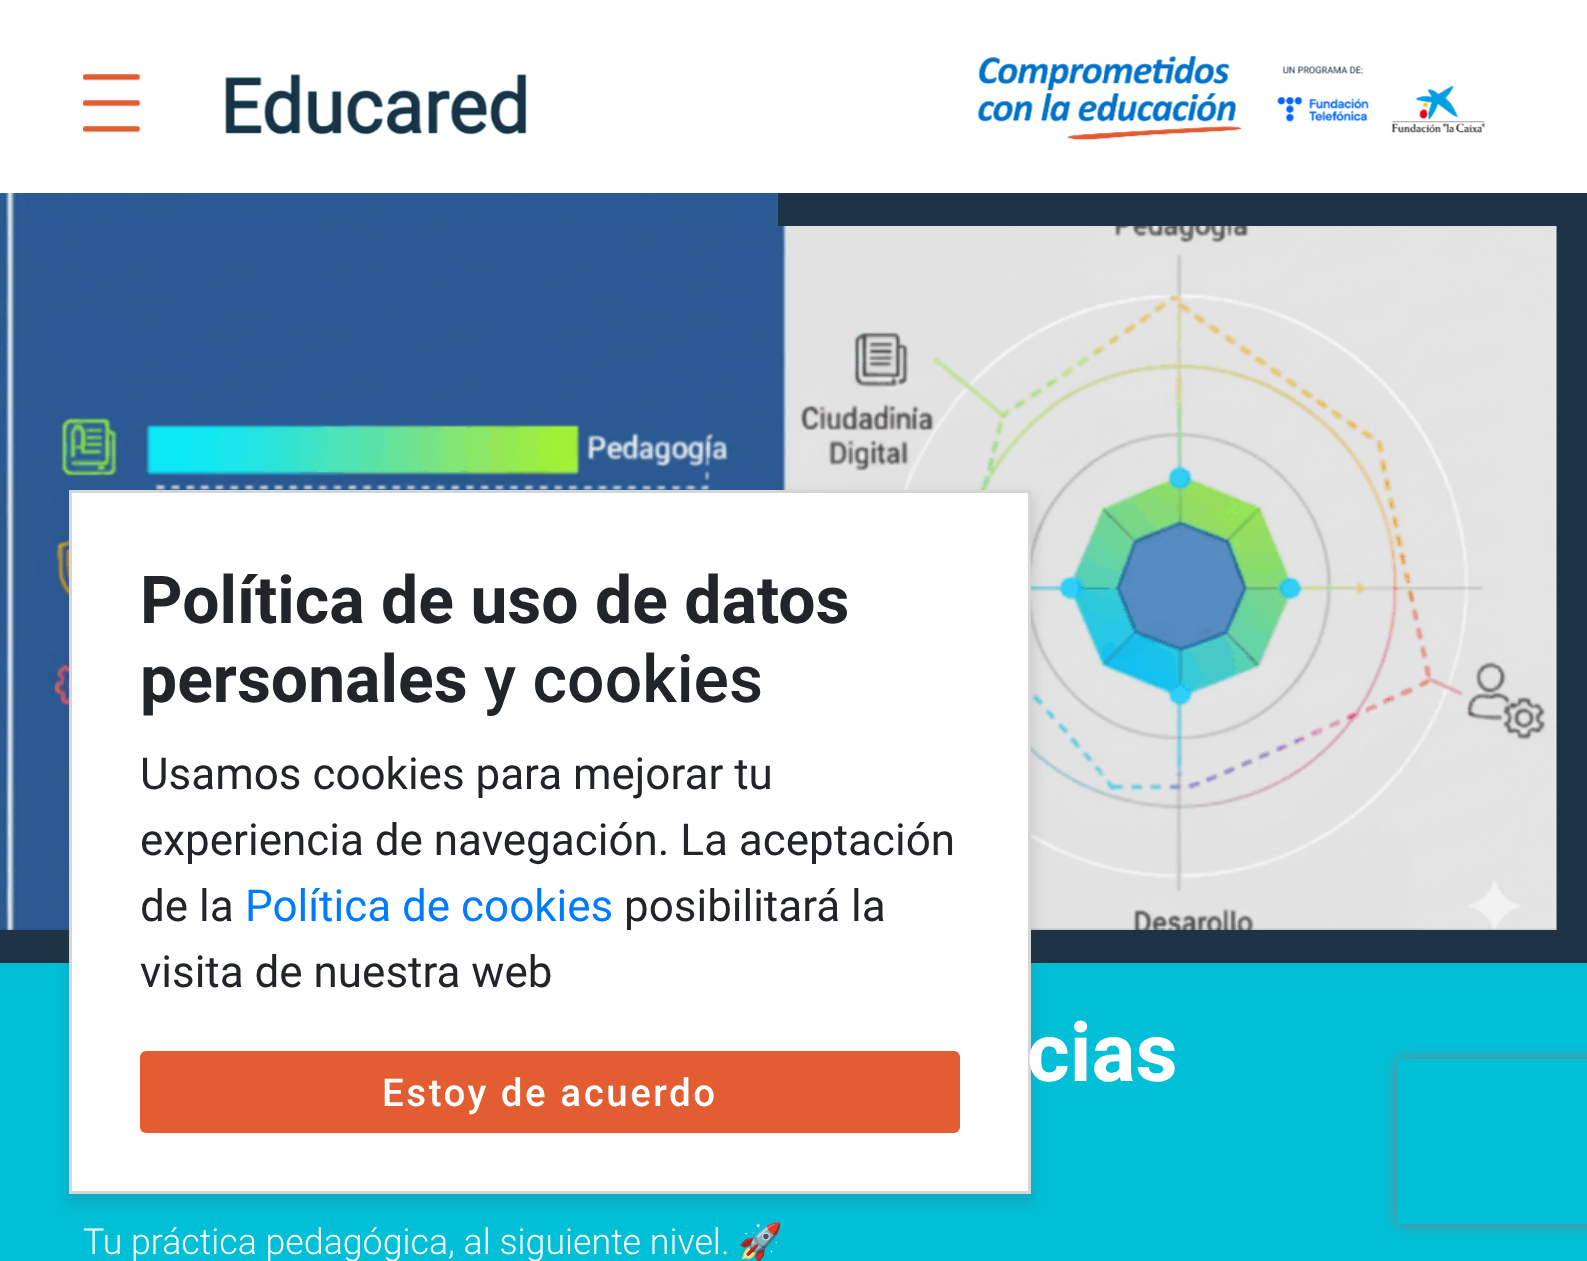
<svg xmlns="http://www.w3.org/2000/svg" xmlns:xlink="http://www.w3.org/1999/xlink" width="1587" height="1261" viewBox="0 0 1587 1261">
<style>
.cls-1{font:bold 66px Roboto;fill:#212529}
.cls-2{font:500 66px Roboto;fill:#212529}
.cls-3{font:44px Roboto;fill:#212529}
.cls-4{font:44px Roboto;fill:#007bff}
.cls-5{font:500 38.5px Roboto;letter-spacing:2.5px;fill:#ffffff}
.cls-6{font:bold 82px Roboto;fill:#ffffff}
.cls-7{font:300 35.75px Roboto;fill:#ffffff}
.cls-8{font:35.75px Noto Color Emoji;fill:#ffffff}
</style>
<defs>
<clipPath id="clip1"><path d="M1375 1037H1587V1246H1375ZM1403 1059H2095C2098.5 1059 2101 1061.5 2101 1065V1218C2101 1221.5 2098.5 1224 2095 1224H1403C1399.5 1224 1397 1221.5 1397 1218V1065C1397 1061.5 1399.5 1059 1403 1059Z" clip-rule="evenodd"/></clipPath>
</defs>
<rect width="100%" height="100%" fill="#ffffff"/>
<image xlink:href="image0.png" x="83" y="74" width="58" height="59"/>
<image xlink:href="image1.png" x="225" y="74" width="302" height="61"/>
<image xlink:href="image2.png" x="978" y="56" width="508" height="85"/>
<rect fill="#1e3245" x="0" y="193" width="1587" height="770"/>
<image xlink:href="image3.png" x="0" y="193" width="1557" height="737"/>
<rect fill="#00bfd7" x="0" y="963" width="1587" height="298"/>
<rect fill="#404040" fill-opacity="0.15" filter="blur(7px)" x="66" y="495" width="968" height="710"/>
<rect fill="#ffffff" stroke="#d6d6d6" stroke-width="3" x="70.5" y="491.5" width="959" height="701"/>
<rect fill="#e25d32" x="140" y="1051" width="820" height="82" rx="6"/>
<rect fill="#1e3345" x="778" y="193" width="779" height="33"/>
<g clip-path="url(#clip1)">
<rect fill="#808080" filter="blur(7px)" x="1397" y="1059" width="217" height="165" rx="6"/>
</g>
<text class="cls-1"><tspan x="140" y="623">Política de uso de datos</tspan><tspan x="140" y="702">personales</tspan></text>
<text class="cls-2" x="484" y="702">y cookies</text>
<text class="cls-3"><tspan x="140" y="789">Usamos cookies para mejorar tu</tspan><tspan x="140" y="855">experiencia de navegación. La aceptación</tspan><tspan x="140" y="921">de la</tspan></text>
<text class="cls-4" x="245" y="921">Política de cookies</text>
<text class="cls-3" x="624" y="921">posibilitará la</text>
<text class="cls-3" x="140" y="987">visita de nuestra web</text>
<text class="cls-5" x="382" y="1106">Estoy de acuerdo</text>
<text class="cls-6" x="1027" y="1081">cias</text>
<text class="cls-7" x="83" y="1254">Tu práctica pedagógica, al siguiente nivel.</text>
<text class="cls-8" x="738" y="1254">🚀</text>
</svg>
